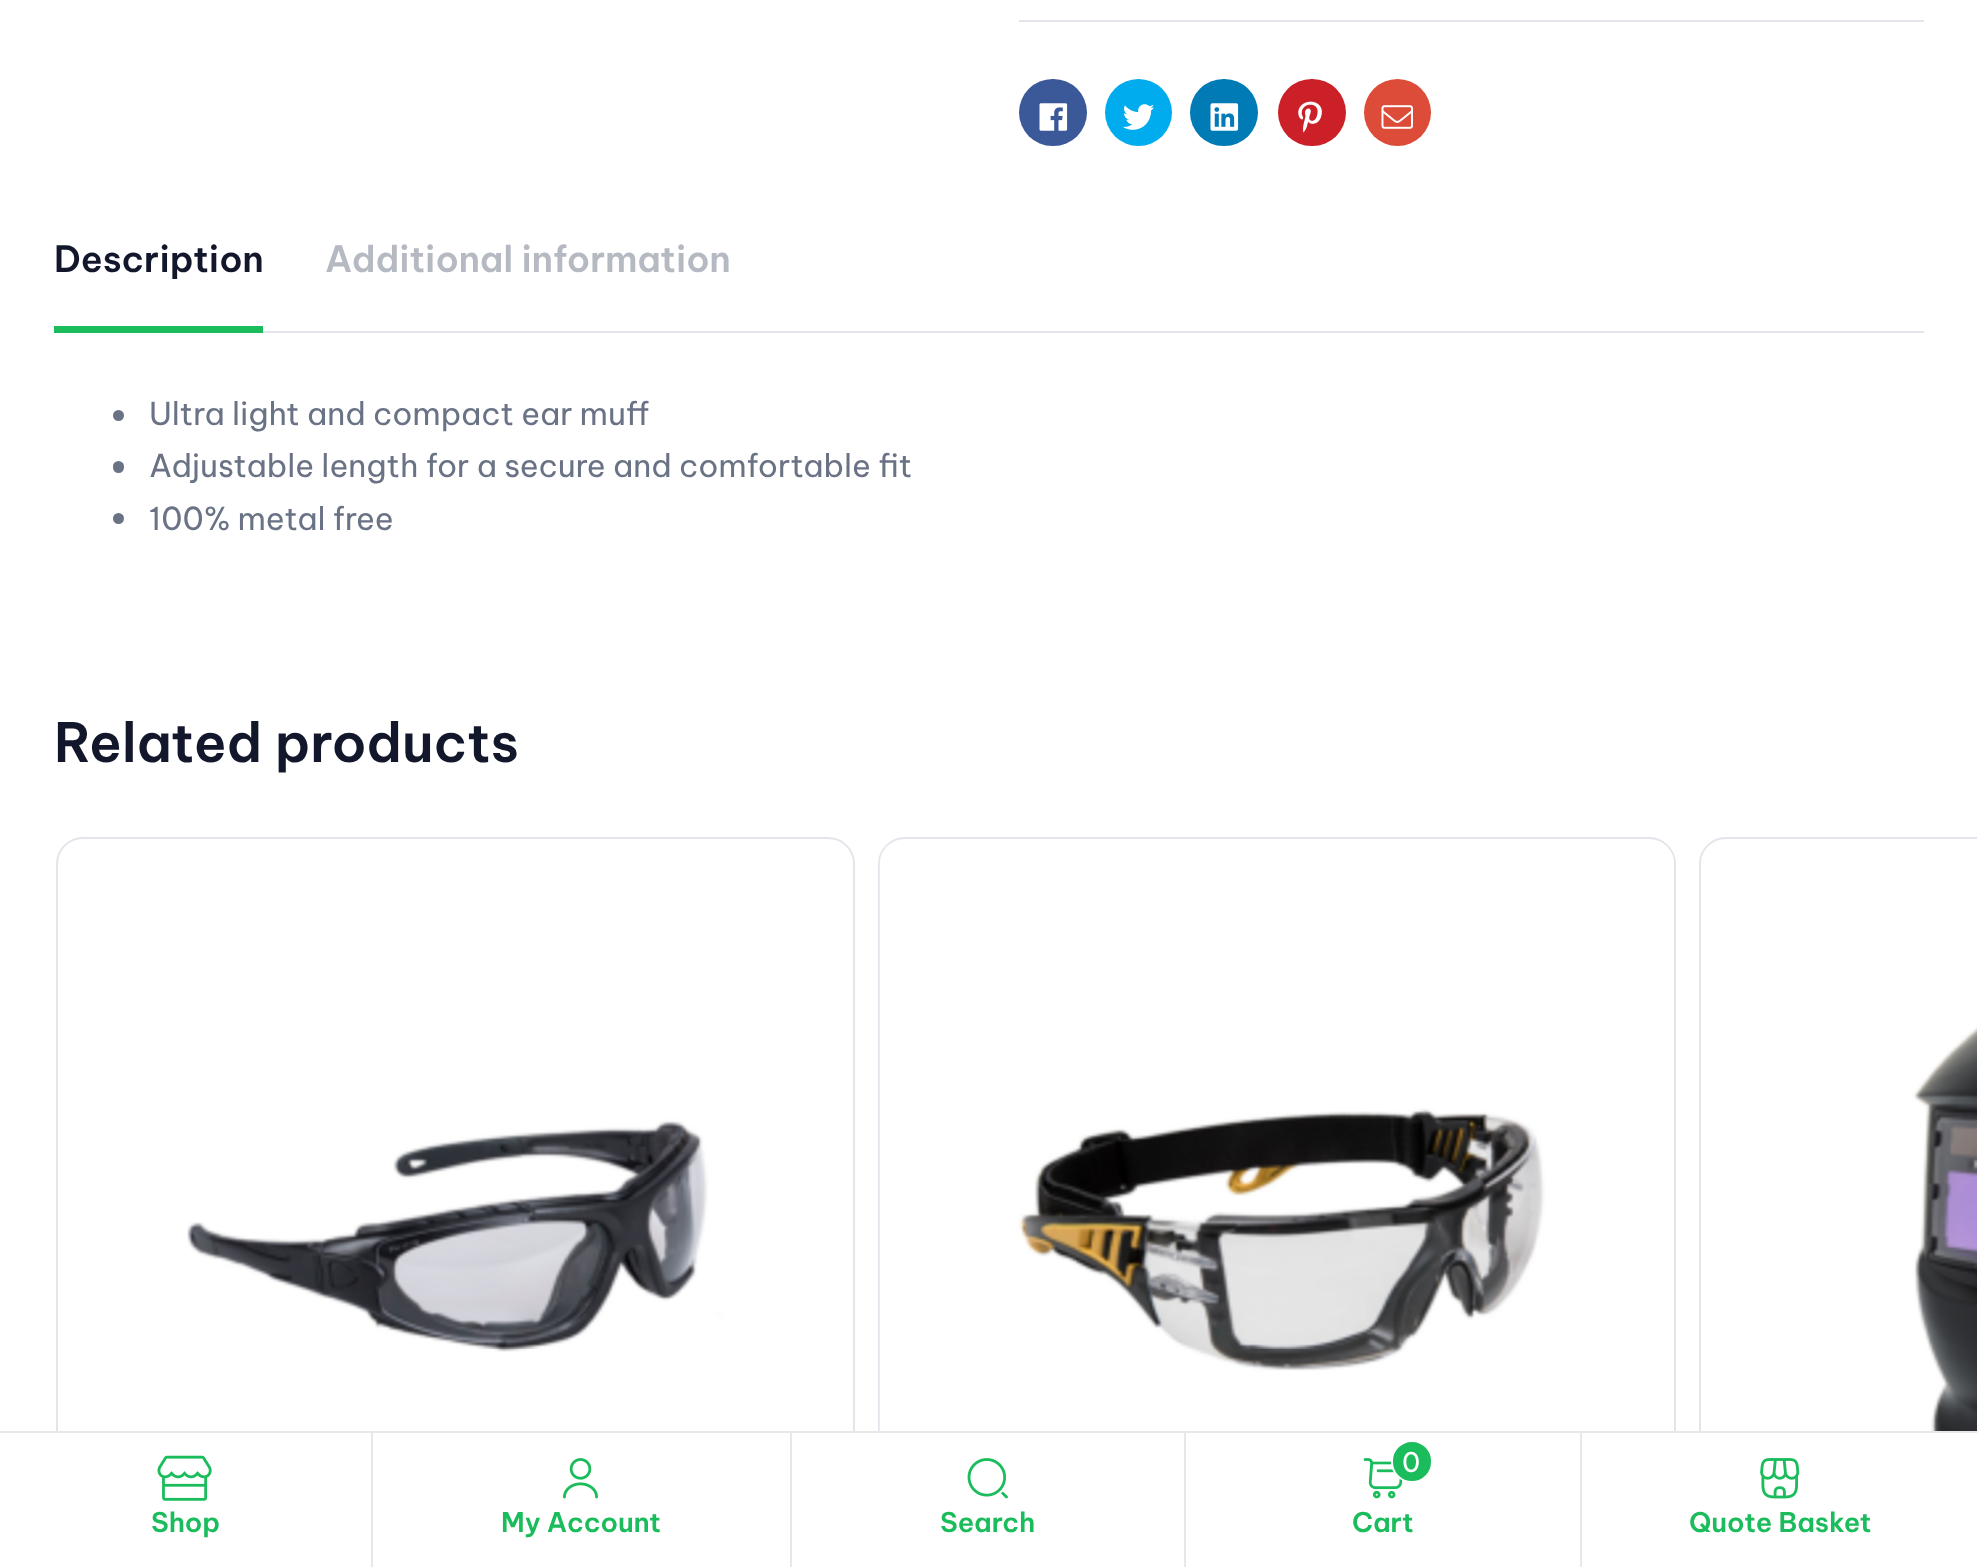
<svg xmlns="http://www.w3.org/2000/svg" xmlns:xlink="http://www.w3.org/1999/xlink" width="1977" height="1567" viewBox="0 0 1977 1567">
<style>
.cls-1{font:600 36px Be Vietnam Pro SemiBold;fill:#13172b}
.cls-2{font:600 36px Be Vietnam Pro SemiBold;fill:#b5b9c2}
.cls-3{font:31.5px Be Vietnam Pro;fill:#6a7285}
.cls-4{font:600 54px Be Vietnam Pro SemiBold;fill:#13172b}
.cls-5{font:600 27px Be Vietnam Pro SemiBold;fill:#1abc5b}
.cls-6{font:27px Be Vietnam Pro;fill:#ffffff}
</style>
<rect width="100%" height="100%" fill="#ffffff"/>
<rect fill="#e2e5eb" x="1019" y="20" width="905" height="2"/>
<rect fill="#3b5998" x="1019" y="79" width="68" height="67" rx="33.5"/>
<image xlink:href="image0.png" x="1039" y="103" width="29" height="28"/>
<circle fill="#00aced" cx="1138.5" cy="112.5" r="33.5"/>
<image xlink:href="image1.png" x="1123" y="104" width="32" height="26"/>
<rect fill="#007bb6" x="1190" y="79" width="68" height="67" rx="33.5"/>
<image xlink:href="image2.png" x="1210" y="103" width="29" height="28"/>
<rect fill="#cb2027" x="1278" y="79" width="68" height="67" rx="33.5"/>
<image xlink:href="image3.png" x="1298" y="101" width="24" height="32"/>
<circle fill="#dd4b39" cx="1397.5" cy="112.5" r="33.5"/>
<image xlink:href="image4.png" x="1381" y="105" width="32" height="24"/>
<rect fill="#e2e5eb" x="263" y="331" width="1661" height="2"/>
<rect fill="#1abc5c" x="54" y="326" width="209" height="7"/>
<circle fill="#6a7285" cx="118.5" cy="415.5" r="5.5"/>
<rect fill="#6a7285" x="113" y="461" width="11" height="12" rx="5.5"/>
<circle fill="#6a7285" cx="118.5" cy="518.5" r="5.5"/>
<rect fill="none" stroke="#e2e5eb" stroke-width="2" x="57" y="838" width="797" height="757" rx="26"/>
<image xlink:href="image5.png" x="187" y="855" width="666" height="497"/>
<rect fill="none" stroke="#e2e5eb" stroke-width="2" x="879" y="838" width="796" height="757" rx="26"/>
<image xlink:href="image6.png" x="879" y="843" width="795" height="588"/>
<rect fill="none" stroke="#e2e5eb" stroke-width="2" x="1700" y="838" width="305" height="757" rx="26"/>
<image xlink:href="image7.png" x="1701" y="846" width="276" height="585"/>
<rect fill="#ffffff" x="56" y="1433" width="1645" height="134"/>
<rect fill="#e8e8e8" x="0" y="1431" width="1977" height="2"/>
<rect fill="#e8e8e8" x="371" y="1433" width="2" height="134"/>
<image xlink:href="image8.png" x="157" y="1455" width="55" height="46"/>
<rect fill="#e8e8e8" x="790" y="1433" width="2" height="134"/>
<image xlink:href="image9.png" x="563" y="1458" width="35" height="41"/>
<rect fill="#e8e8e8" x="1184" y="1433" width="2" height="134"/>
<image xlink:href="image10.png" x="967" y="1458" width="41" height="41"/>
<rect fill="#e8e8e8" x="1580" y="1433" width="2" height="134"/>
<image xlink:href="image11.png" x="1363" y="1458" width="40" height="41"/>
<rect fill="#1abc5c" stroke="#ffffff" stroke-width="2" x="1392" y="1441" width="40" height="41" rx="20"/>
<image xlink:href="image12.png" x="1760" y="1458" width="40" height="41"/>
<text class="cls-1" x="54" y="272">Description</text>
<text class="cls-2" x="325" y="272">Additional information</text>
<text class="cls-3"><tspan x="149" y="425">Ultra light and compact ear muff</tspan><tspan x="149" y="477">Adjustable length for a secure and comfortable fit</tspan><tspan x="149" y="530">100% metal free</tspan></text>
<text class="cls-4" x="54" y="762">Related products</text>
<text class="cls-5" x="151" y="1532">Shop</text>
<text class="cls-5" x="501" y="1532">My Account</text>
<text class="cls-5" x="940" y="1532">Search</text>
<text class="cls-6" x="1402" y="1472">0</text>
<text class="cls-5" x="1352" y="1532">Cart</text>
<text class="cls-5" x="1689" y="1532">Quote Basket</text>
</svg>
